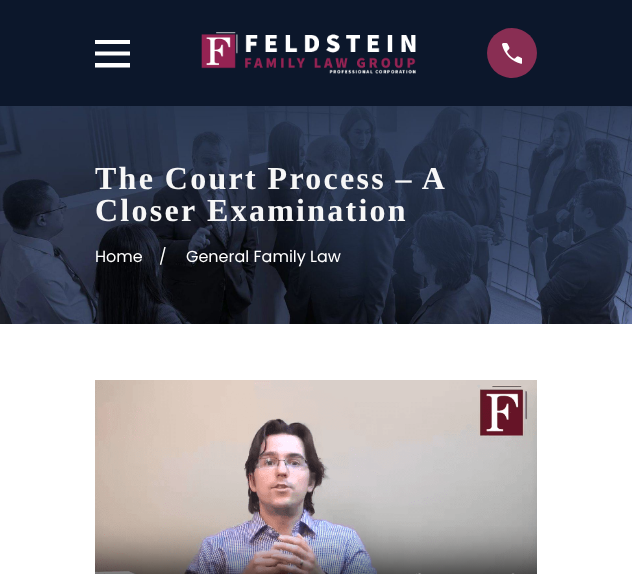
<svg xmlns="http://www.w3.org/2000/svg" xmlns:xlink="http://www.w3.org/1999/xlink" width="632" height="574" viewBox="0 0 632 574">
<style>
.cls-1{font:bold 32px Liberation Serif;letter-spacing:2.25px;fill:#f7f7f7}
.cls-2{font:16px Poppins;fill:#ffffff}
</style>
<rect width="100%" height="100%" fill="#ffffff"/>
<rect fill="#0c172b" x="0" y="0" width="632" height="106"/>
<path fill="#ffffff" d="M95 40V44H130V40ZM95 51.5V55.5H130V51.5ZM95 63V67.5H130V63Z"/>
<image xlink:href="image0.png" x="201" y="32" width="215" height="42"/>
<circle fill="#892e53" cx="512" cy="53" r="25"/>
<image xlink:href="image1.png" x="502" y="43" width="20" height="21"/>
<image xlink:href="image2.png" x="0" y="106" width="632" height="218"/>
<image xlink:href="image3.png" x="95" y="380" width="442" height="194"/>
<text class="cls-1"><tspan x="95" y="189" word-spacing="-0.5">The Court Process – A</tspan><tspan x="95" y="221">Closer Examination</tspan></text>
<text class="cls-2" x="95" y="262">Home</text>
<text class="cls-2" x="159" y="262">/</text>
<text class="cls-2" x="186" y="262">General Family Law</text>
</svg>
